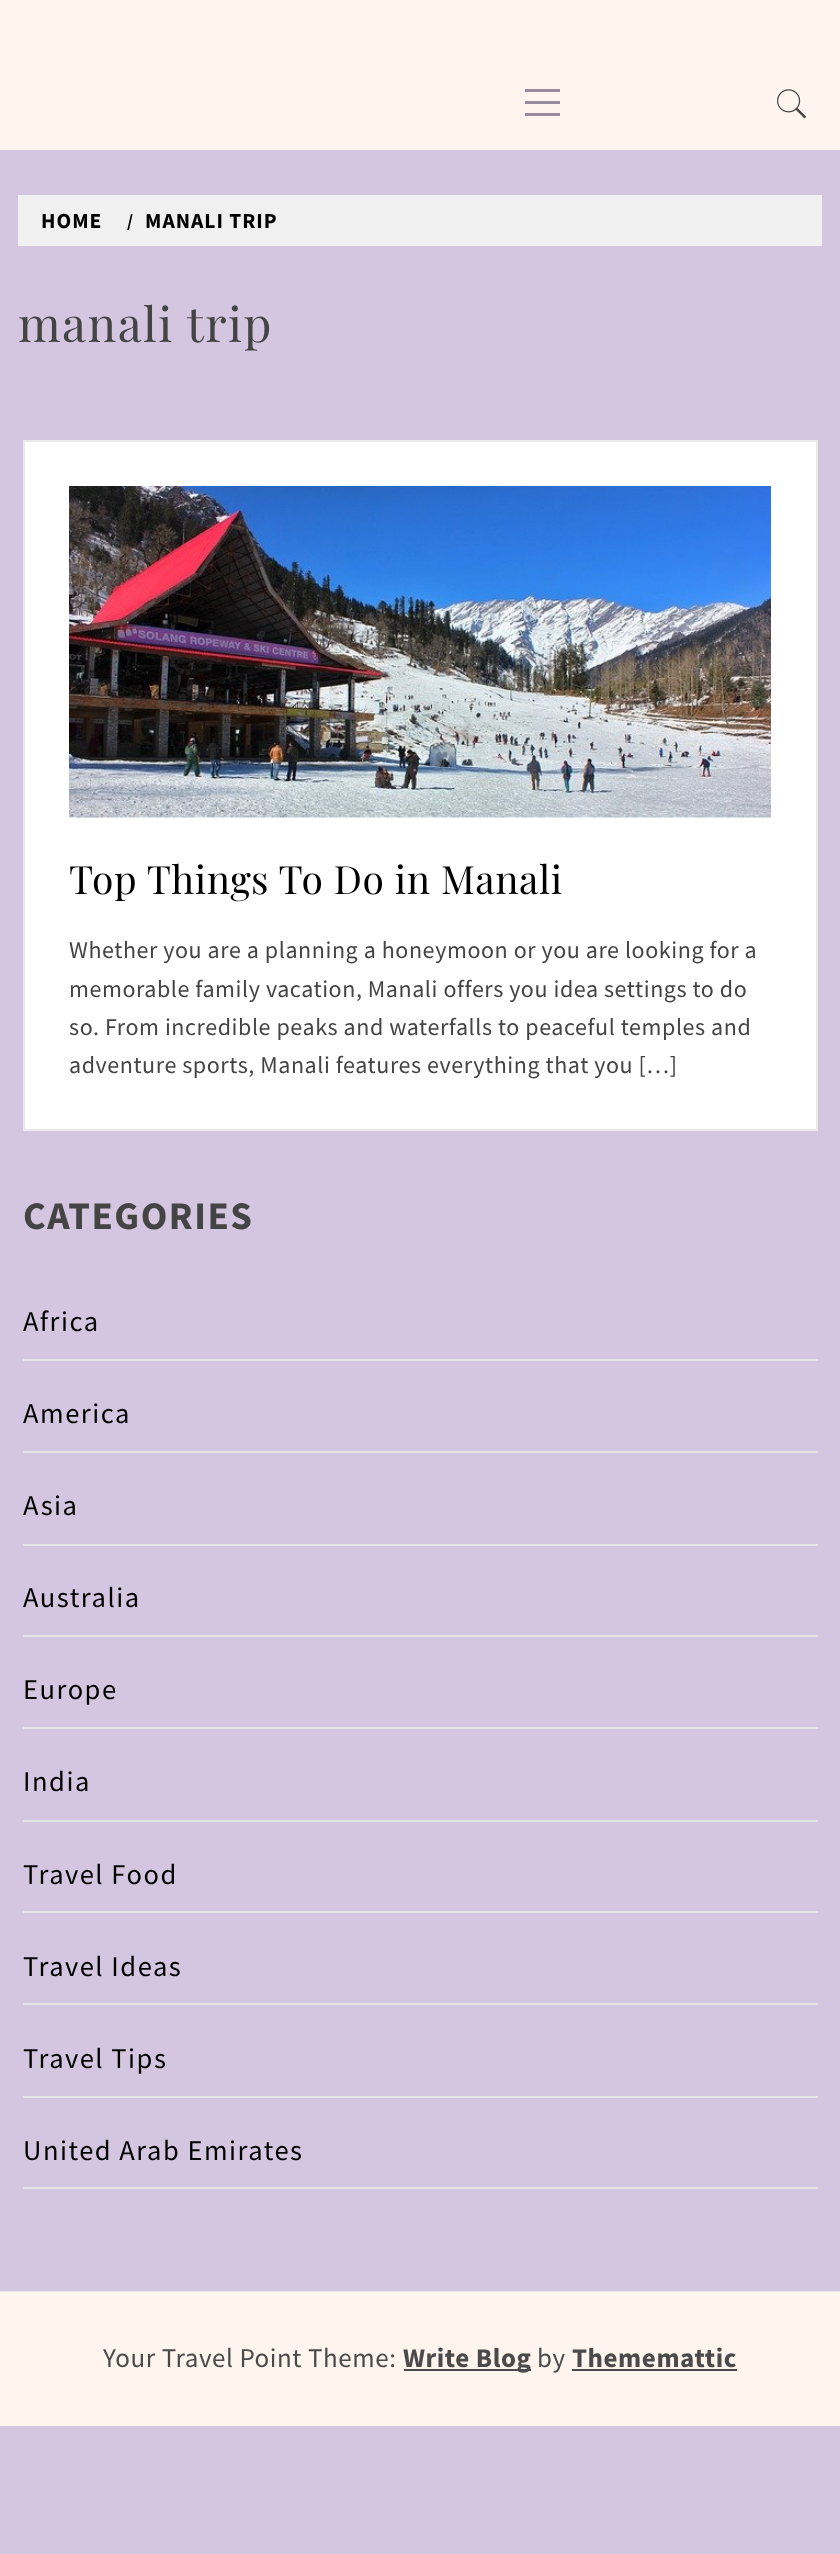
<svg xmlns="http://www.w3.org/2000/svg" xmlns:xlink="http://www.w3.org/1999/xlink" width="840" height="2554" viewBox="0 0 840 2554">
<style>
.cls-1{font:bold 21.5px Source Sans Pro;letter-spacing:1px;fill:#000000}
.cls-2{font:bold 18px Source Sans Pro;letter-spacing:1px;fill:#000000}
.cls-3{font:48px Playfair Display;letter-spacing:1.5px;fill:#444444}
.cls-4{font:39px Playfair Display;letter-spacing:0.57px;fill:#000000}
.cls-5{font:24px Source Sans Pro;letter-spacing:0.57px;fill:#444444}
.cls-6{font:bold 39px Source Sans Pro;letter-spacing:1.5px;fill:#444444}
.cls-7{font:28.5px Source Sans Pro;letter-spacing:1.5px;fill:#000000}
.cls-8{font:27px Source Sans Pro;letter-spacing:0.57px;fill:#4a4a4a}
.cls-9{font:bold 27px Source Sans Pro;letter-spacing:0.57px;fill:#4a4a4a}
</style>
<rect width="100%" height="100%" fill="#d4c5e0"/>
<rect fill="#fff4ee" x="0" y="0" width="840" height="150"/>
<rect fill="#988aa0" x="525" y="101" width="35" height="3"/>
<rect fill="#988aa0" x="525" y="89" width="35" height="3"/>
<rect fill="#988aa0" x="525" y="113" width="35" height="3"/>
<image xlink:href="image0.png" x="777" y="89" width="30" height="30"/>
<rect fill="#f0f0f0" x="18" y="195" width="804" height="51"/>
<rect fill="#ffffff" stroke="#eaeaea" stroke-width="2" x="24" y="441" width="793" height="689"/>
<image xlink:href="image1.png" x="69" y="486" width="702" height="332"/>
<rect fill="#e5e5e5" x="23" y="1359" width="795" height="2"/>
<rect fill="#e5e5e5" x="23" y="1451" width="795" height="2"/>
<rect fill="#e5e5e5" x="23" y="1544" width="795" height="2"/>
<rect fill="#e5e5e5" x="23" y="1635" width="795" height="2"/>
<rect fill="#e5e5e5" x="23" y="1727" width="795" height="2"/>
<rect fill="#e5e5e5" x="23" y="1820" width="795" height="2"/>
<rect fill="#e5e5e5" x="23" y="1911" width="795" height="2"/>
<rect fill="#e5e5e5" x="23" y="2003" width="795" height="2"/>
<rect fill="#e5e5e5" x="23" y="2096" width="795" height="2"/>
<rect fill="#e5e5e5" x="23" y="2187" width="795" height="2"/>
<rect fill="#eaeaea" x="0" y="2291" width="840" height="1"/>
<rect fill="#fff4ee" x="0" y="2292" width="840" height="134"/>
<rect fill="#4a4a4a" x="404" y="2369" width="127" height="2"/>
<rect fill="#4a4a4a" x="572" y="2369" width="165" height="2"/>
<text class="cls-1" x="41" y="228">HOME</text>
<text class="cls-2" x="127" y="227">/</text>
<text class="cls-1" x="145" y="228">MANALI TRIP</text>
<text class="cls-3" x="18" y="342">manali trip</text>
<text class="cls-4" x="69" y="894">Top Things To Do in Manali</text>
<text class="cls-5"><tspan x="69" y="958">Whether you are a planning a honeymoon or you are looking for a</tspan><tspan x="69" y="997">memorable family vacation, Manali offers you idea settings to do</tspan><tspan x="69" y="1035">so. From incredible peaks and waterfalls to peaceful temples and</tspan><tspan x="69" y="1073">adventure sports, Manali features everything that you […]</tspan></text>
<text class="cls-6" x="23" y="1229">CATEGORIES</text>
<text class="cls-7" x="23" y="1331">Africa</text>
<text class="cls-7" x="23" y="1423">America</text>
<text class="cls-7" x="23" y="1515">Asia</text>
<text class="cls-7" x="23" y="1607">Australia</text>
<text class="cls-7" x="23" y="1699">Europe</text>
<text class="cls-7" x="23" y="1791">India</text>
<text class="cls-7" x="23" y="1884">Travel Food</text>
<text class="cls-7" x="23" y="1976">Travel Ideas</text>
<text class="cls-7" x="23" y="2068">Travel Tips</text>
<text class="cls-7" x="23" y="2160">United Arab Emirates</text>
<text class="cls-8" x="103" y="2367">Your Travel Point Theme:</text>
<text class="cls-9" x="403" y="2367">Write Blog</text>
<text class="cls-8" x="537" y="2367">by</text>
<text class="cls-9" x="572" y="2367">Thememattic</text>
</svg>
